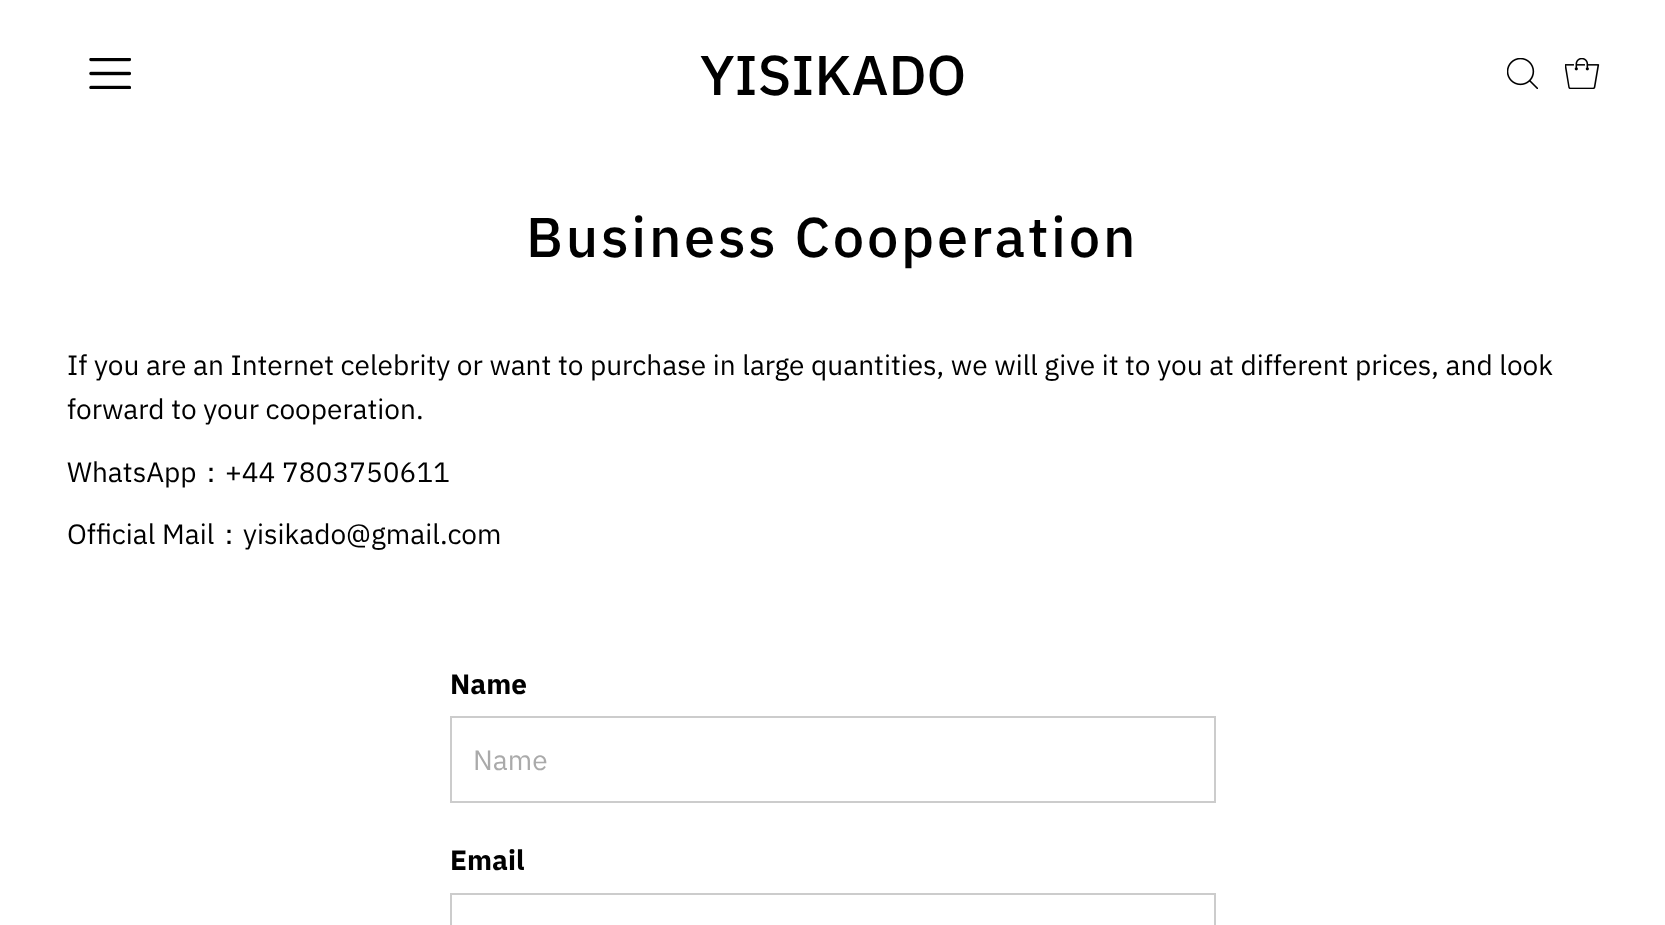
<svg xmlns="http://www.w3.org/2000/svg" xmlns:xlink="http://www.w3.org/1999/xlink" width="1665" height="925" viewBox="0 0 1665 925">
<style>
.cls-1{font:500 56px IBM Plex Sans;fill:#000000}
.cls-2{font:500 56px IBM Plex Sans;letter-spacing:2.75px;fill:#000000}
.cls-3{font:28px IBM Plex Sans;fill:#000000}
.cls-4{font:500 28px WenQuanYi Zen Hei;fill:#000000}
.cls-5{font:bold 28px IBM Plex Sans;fill:#000000}
.cls-6{font:28px IBM Plex Sans;fill:#aaaaaa}
</style>
<rect width="100%" height="100%" fill="#ffffff"/>
<image xlink:href="image0.png" x="89" y="58" width="42" height="31"/>
<image xlink:href="image1.png" x="1507" y="58" width="31" height="31"/>
<image xlink:href="image2.png" x="1565" y="58" width="35" height="31"/>
<rect fill="none" stroke="#cccccc" stroke-width="2" x="451" y="717" width="764" height="85"/>
<rect fill="none" stroke="#cccccc" stroke-width="2" x="451" y="894" width="764" height="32"/>
<text class="cls-1" x="700" y="95">YISIKADO</text>
<text class="cls-2" x="526" y="257">Business Cooperation</text>
<text class="cls-3"><tspan x="67" y="375">If you are an Internet celebrity or want to purchase in large quantities, we will give it to you at different prices, and look</tspan><tspan x="67" y="419">forward to your cooperation.</tspan></text>
<text class="cls-3" x="67" y="482">WhatsApp</text>
<text class="cls-4" x="197" y="482">：</text>
<text class="cls-3" x="225" y="482">+44 7803750611</text>
<text class="cls-3" x="67" y="544">Official Mail</text>
<text class="cls-4" x="215" y="544">：</text>
<text class="cls-3" x="243" y="544">yisikado@gmail.com</text>
<text class="cls-5" x="450" y="694">Name</text>
<text class="cls-6" x="473" y="770">Name</text>
<text class="cls-5" x="450" y="870">Email</text>
</svg>
